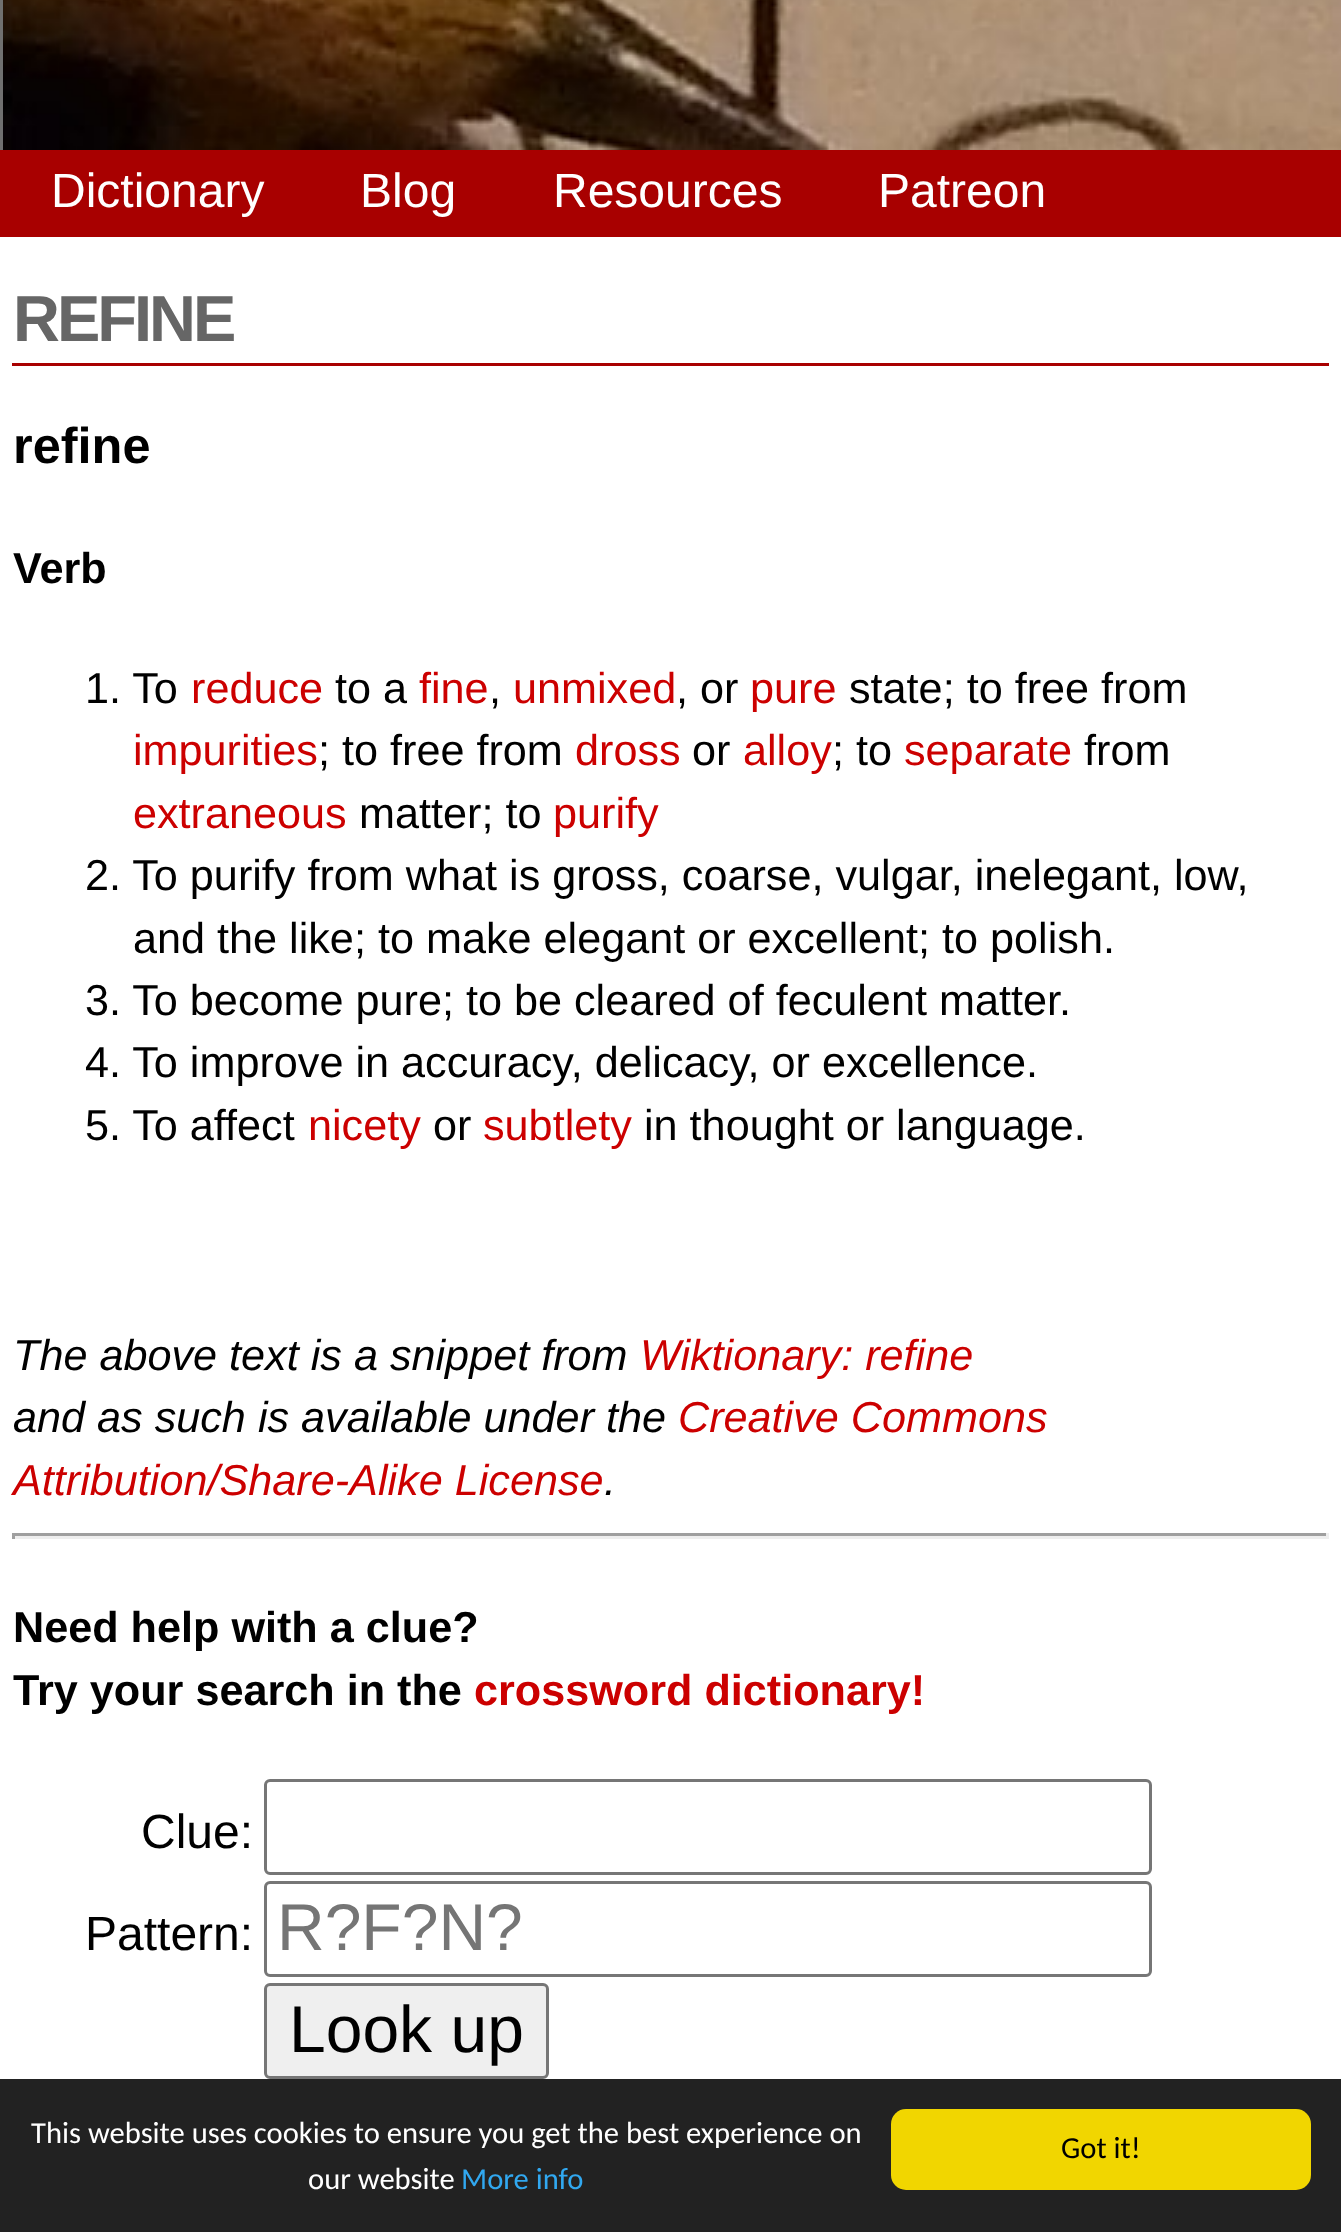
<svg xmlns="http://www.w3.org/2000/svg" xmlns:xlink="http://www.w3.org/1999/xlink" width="1341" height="2232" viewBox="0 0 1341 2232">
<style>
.cls-1{font:48px Liberation Sans;fill:#ffffff}
.cls-2{font:bold 65px Liberation Sans;letter-spacing:-3px;fill:#666666}
.cls-3{font:bold 50.5px Liberation Sans;fill:#000000}
.cls-4{font:bold 43.2px Liberation Sans;fill:#000000}
.cls-5{font:43.2px Liberation Sans;fill:#000000}
.cls-6{font:43.2px Liberation Sans;fill:#cc0000}
.cls-7{font:italic 43.2px Liberation Sans;fill:#000000}
.cls-8{font:italic 43.2px Liberation Sans;fill:#cc0000}
.cls-9{font:bold 43.2px Liberation Sans;fill:#cc0000}
.cls-10{font:48px Liberation Sans;fill:#000000}
.cls-11{font:66px Liberation Sans;fill:#757575}
.cls-12{font:66px Liberation Sans;fill:#000000}
.cls-13{font:30.6px Carlito;fill:#ffffff}
.cls-14{font:30.6px Carlito;fill:#31a8f0}
.cls-15{font:30.6px Carlito;fill:#000000}
</style>
<rect width="100%" height="100%" fill="#ffffff"/>
<image xlink:href="image0.png" x="3" y="0" width="1338" height="150"/>
<rect fill="#707070" x="0" y="0" width="3" height="150"/>
<rect fill="#a80000" x="0" y="150" width="1341" height="87"/>
<rect fill="#a80000" x="12" y="363" width="1317" height="3"/>
<rect fill="#9f9f9f" x="12" y="1533" width="1317" height="3"/>
<rect fill="#eeeeee" x="1326" y="1533" width="3" height="6"/>
<rect fill="#eeeeee" x="12" y="1536" width="1317" height="3"/>
<rect fill="#9f9f9f" x="12" y="1533" width="3" height="6"/>
<rect fill="none" stroke="#767676" stroke-width="3" x="265.5" y="1780.5" width="885" height="93" rx="4.5"/>
<rect fill="none" stroke="#767676" stroke-width="3" x="265.5" y="1882.5" width="885" height="93" rx="4.5"/>
<rect fill="#efefef" stroke="#767676" stroke-width="3" x="265.5" y="1984.5" width="282" height="93" rx="4.5"/>
<rect fill="#222222" x="0" y="2079" width="1341" height="153"/>
<rect fill="#f1d600" x="891" y="2109" width="420" height="81" rx="15"/>
<text class="cls-1" x="51" y="207">Dictionary</text>
<text class="cls-1" x="360" y="207">Blog</text>
<text class="cls-1" x="553" y="207">Resources</text>
<text class="cls-1" x="878" y="207">Patreon</text>
<text class="cls-2" x="13" y="341">REFINE</text>
<text class="cls-3" x="13" y="463">refine</text>
<text class="cls-4" x="13" y="583">Verb</text>
<text class="cls-5" x="85" y="703">1. To</text>
<text class="cls-6" x="191" y="703">reduce</text>
<text class="cls-5" x="335" y="703">to a</text>
<text class="cls-6" x="419" y="703">fine</text>
<text class="cls-5" x="489" y="703">,</text>
<text class="cls-6" x="513" y="703">unmixed</text>
<text class="cls-5" x="676" y="703">, or</text>
<text class="cls-6" x="750" y="703">pure</text>
<text class="cls-5" x="849" y="703">state; to free from</text>
<text class="cls-6" x="133" y="765">impurities</text>
<text class="cls-5" x="318" y="765">; to free from</text>
<text class="cls-6" x="575" y="765">dross</text>
<text class="cls-5" x="692" y="765">or</text>
<text class="cls-6" x="743" y="765">alloy</text>
<text class="cls-5" x="832" y="765">; to</text>
<text class="cls-6" x="904" y="765">separate</text>
<text class="cls-5" x="1084" y="765">from</text>
<text class="cls-6" x="133" y="828">extraneous</text>
<text class="cls-5" x="359" y="828">matter; to</text>
<text class="cls-6" x="553" y="828">purify</text>
<text class="cls-5" x="85" y="890">2. To purify from what is gross, coarse, vulgar, inelegant, low,</text>
<text class="cls-5" x="133" y="953">and the like; to make elegant or excellent; to polish.</text>
<text class="cls-5"><tspan x="85" y="1015">3. To become pure; to be cleared of feculent matter.</tspan><tspan x="85" y="1077">4. To improve in accuracy, delicacy, or excellence.</tspan><tspan x="85" y="1140">5. To affect</tspan></text>
<text class="cls-6" x="308" y="1140">nicety</text>
<text class="cls-5" x="433" y="1140">or</text>
<text class="cls-6" x="483" y="1140">subtlety</text>
<text class="cls-5" x="644" y="1140">in thought or language.</text>
<text class="cls-7" x="13" y="1370">The above text is a snippet from</text>
<text class="cls-8" x="640" y="1370">Wiktionary: refine</text>
<text class="cls-7" x="13" y="1432">and as such is available under the</text>
<text class="cls-8" x="678" y="1432">Creative Commons</text>
<text class="cls-8" x="13" y="1495">Attribution/Share-Alike License</text>
<text class="cls-7" x="604" y="1495">.</text>
<text class="cls-4"><tspan x="13" y="1642">Need help with a clue?</tspan><tspan x="13" y="1705">Try your search in the</tspan></text>
<text class="cls-9" x="474" y="1705">crossword dictionary!</text>
<text class="cls-10" x="141" y="1848">Clue:</text>
<text class="cls-10" x="85" y="1950">Pattern:</text>
<text class="cls-11" x="277" y="1950">R?F?N?</text>
<text class="cls-12" x="289" y="2052">Look up</text>
<text class="cls-13" x="31" y="2143">This website uses cookies to ensure you get the best experience on</text>
<text class="cls-13" x="308" y="2189">our website</text>
<text class="cls-14" x="461" y="2189">More info</text>
<text class="cls-15" x="1061" y="2158">Got it!</text>
</svg>
